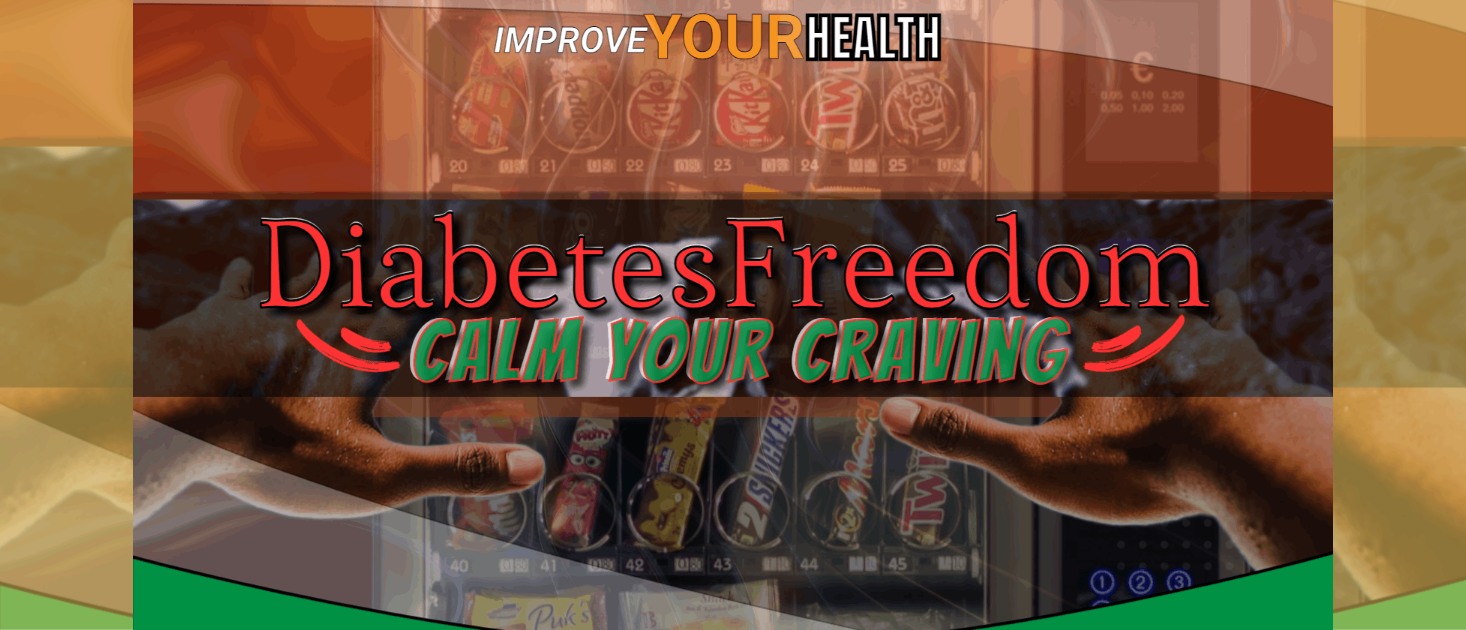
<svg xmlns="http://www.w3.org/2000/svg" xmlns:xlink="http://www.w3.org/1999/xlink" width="1466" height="630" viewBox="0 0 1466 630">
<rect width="100%" height="100%" fill="#ffffff"/>
<image xlink:href="image0.png" x="0" y="0" width="1466" height="630"/>
<image xlink:href="image1.png" x="133" y="0" width="1200" height="630"/>
</svg>
